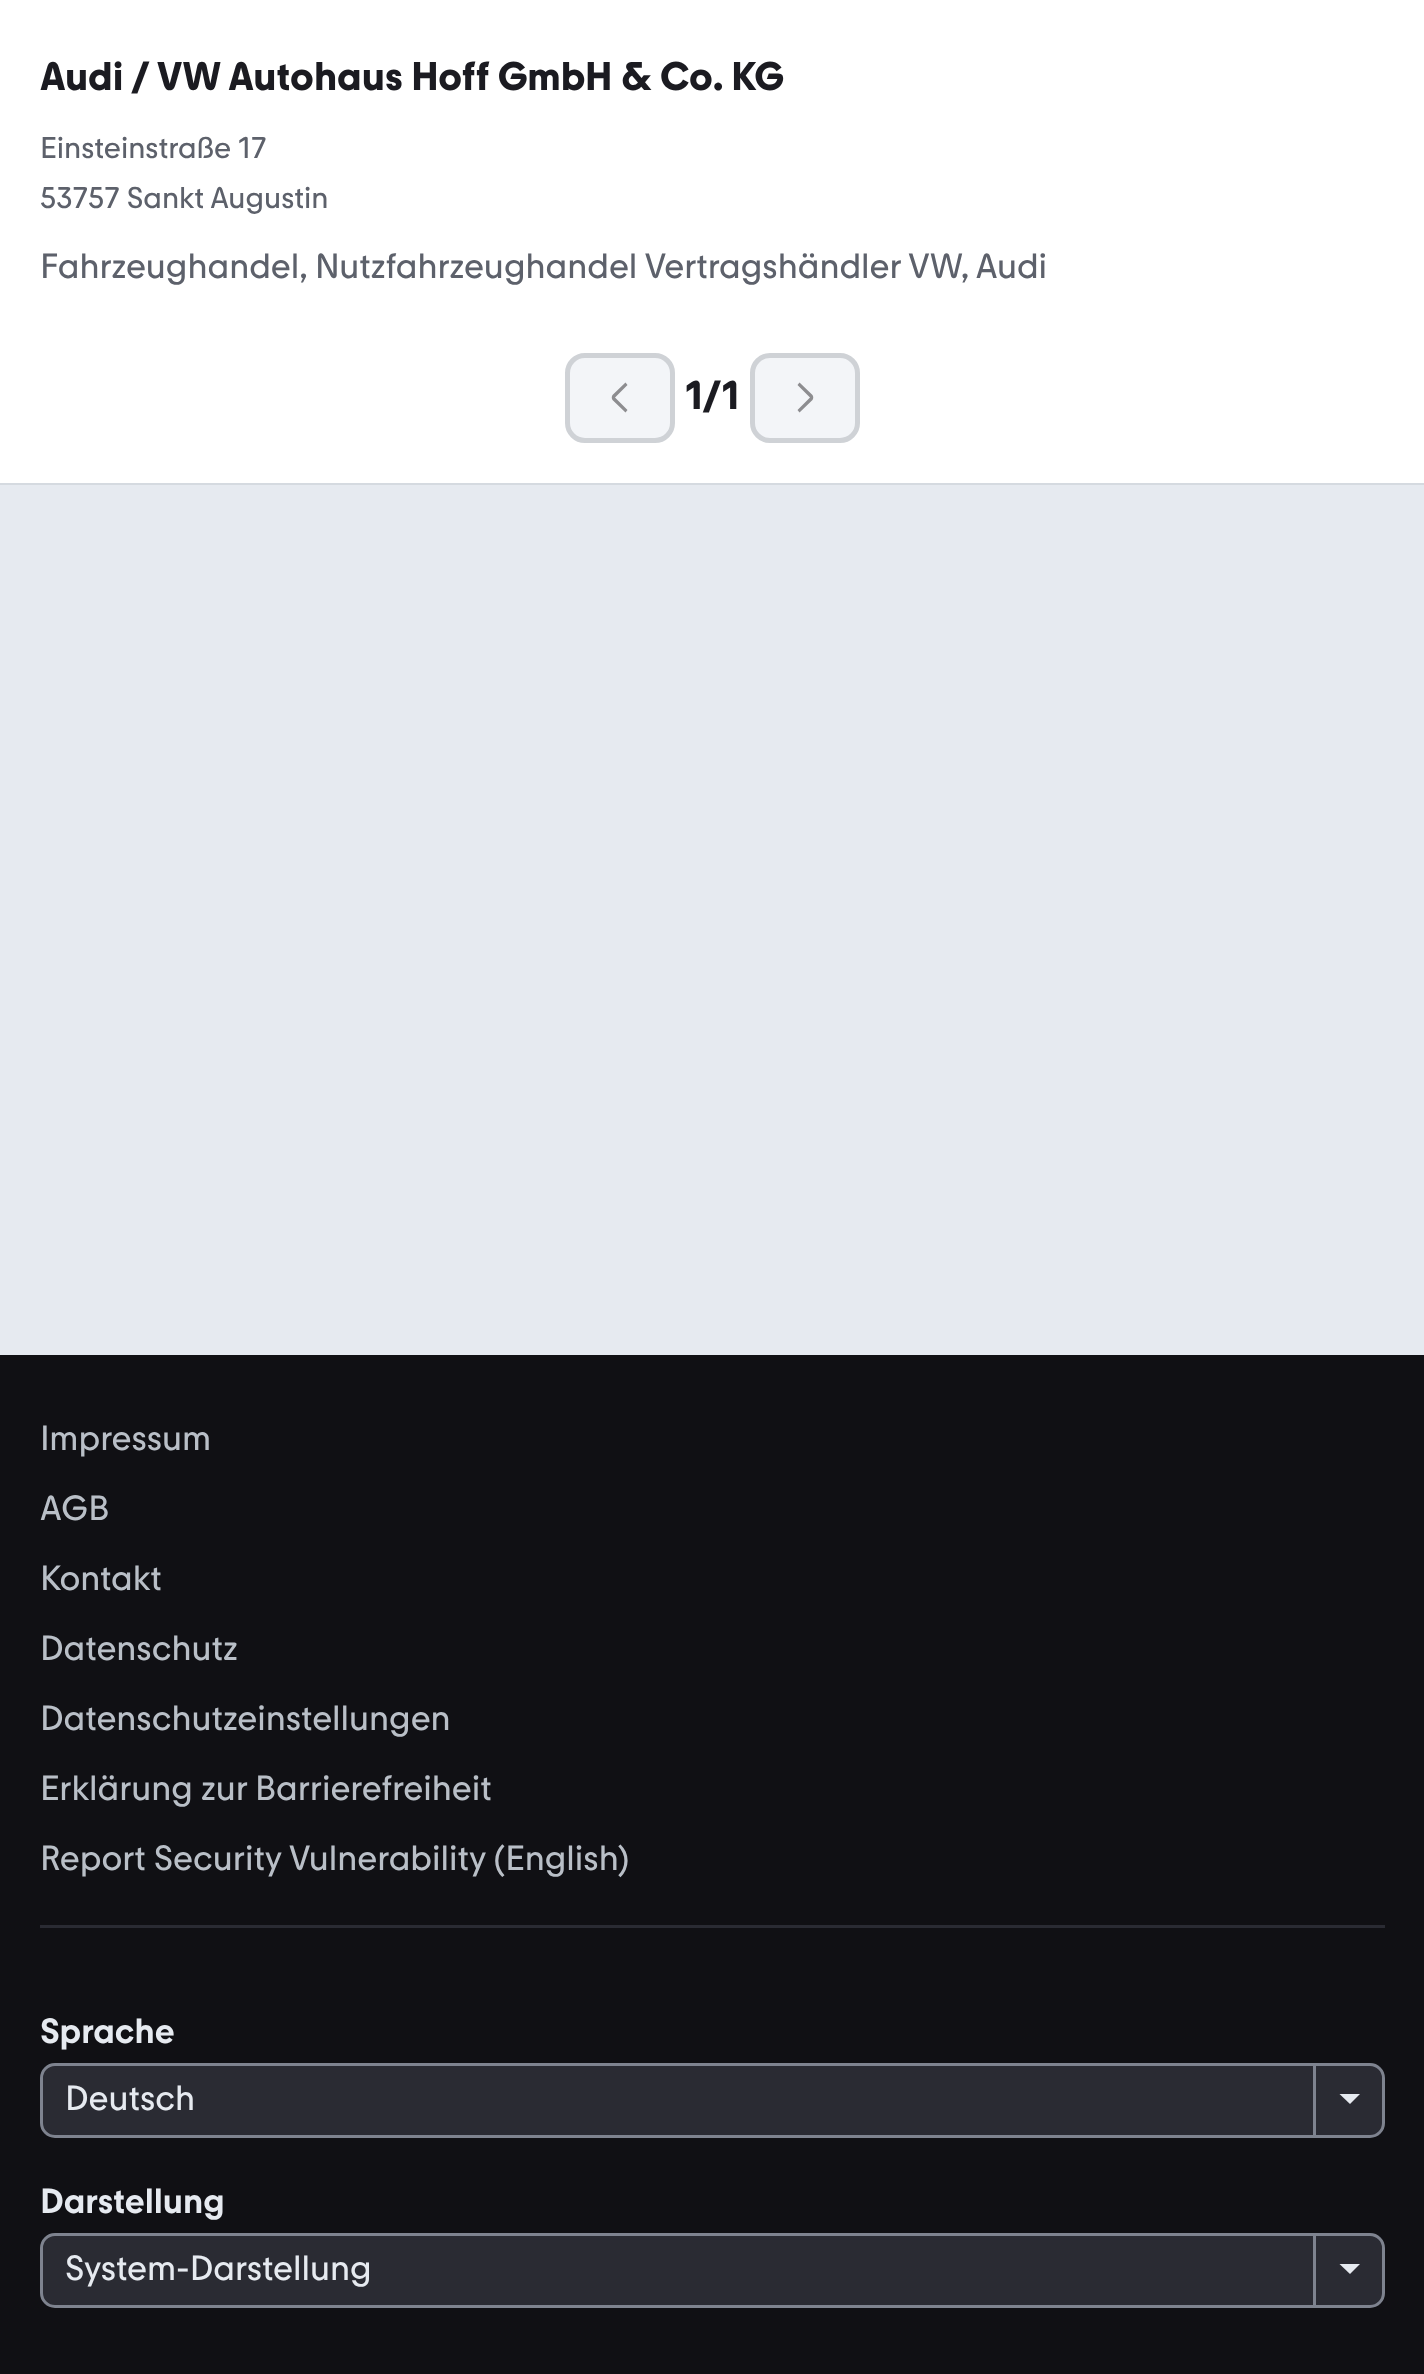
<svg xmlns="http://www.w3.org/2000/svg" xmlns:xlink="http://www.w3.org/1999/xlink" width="1424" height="2374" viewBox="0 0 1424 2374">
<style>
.cls-1{font:bold 40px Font;fill:#1b1b21}
.cls-2{font:30px Font;fill:#5d616b}
.cls-3{font:35px Font;fill:#5d616b}
.cls-4{font:35px Font;fill:#b9bfc7}
.cls-5{font:500 35px Font;fill:#e6eaf0}
.cls-6{font:35px Font;fill:#e6eaf0}
</style>
<rect width="100%" height="100%" fill="#e6eaf0"/>
<rect fill="none" stroke="#d5dae0" stroke-width="3" x="-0.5" y="-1.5" width="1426" height="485"/>
<rect fill="#ffffff" x="0" y="0" width="1424" height="483"/>
<rect fill="#f3f5f8" stroke="#cfd2d6" stroke-width="5" x="567.5" y="355.5" width="105" height="85" rx="17.5"/>
<path fill="#8d8d90" d="M612.5 395L625.5 382.5L627.5 385L615 397.5L627.5 410L625.5 412.5L612.5 400C611.5 398.5 611.5 396.5 612.5 395Z"/>
<rect fill="#f3f5f8" stroke="#cfd2d6" stroke-width="5" x="752.5" y="355.5" width="105" height="85" rx="17.5"/>
<path fill="#8d8d90" d="M812.5 395L799.5 382.5L797.5 385L810 397.5L797.5 410L799.5 412.5L812.5 400C813.5 398.5 813.5 396.5 812.5 395Z"/>
<rect fill="#101014" x="0" y="1355" width="1424" height="1019"/>
<rect fill="#2a2b33" x="40" y="1925" width="1345" height="3"/>
<rect fill="#2a2b33" stroke="#7e838f" stroke-width="3" x="41.5" y="2064.5" width="1342" height="72" rx="13.5"/>
<rect fill="#7e838f" x="1313" y="2065" width="3" height="70"/>
<path fill="#e6eaf0" d="M1339.5 2094H1360L1350 2104Z"/>
<rect fill="#2a2b33" stroke="#7e838f" stroke-width="3" x="41.5" y="2234.5" width="1342" height="72" rx="13.5"/>
<rect fill="#7e838f" x="1313" y="2235" width="3" height="70"/>
<path fill="#e6eaf0" d="M1339.5 2264H1360L1350 2274Z"/>
<text class="cls-1" x="40" y="90">Audi / VW Autohaus Hoff GmbH &amp; Co. KG</text>
<text class="cls-2"><tspan x="40" y="158">Einsteinstraße 17</tspan><tspan x="40" y="208">53757 Sankt Augustin</tspan></text>
<text class="cls-3" x="40" y="278">Fahrzeughandel, Nutzfahrzeughandel Vertragshändler VW, Audi</text>
<text class="cls-1" x="685" y="409">1/1</text>
<text class="cls-4" x="40" y="1450">Impressum</text>
<text class="cls-4" x="40" y="1520">AGB</text>
<text class="cls-4" x="40" y="1590">Kontakt</text>
<text class="cls-4" x="40" y="1660">Datenschutz</text>
<text class="cls-4" x="40" y="1730">Datenschutzeinstellungen</text>
<text class="cls-4" x="40" y="1800">Erklärung zur Barrierefreiheit</text>
<text class="cls-4" x="40" y="1870">Report Security Vulnerability (English)</text>
<text class="cls-5" x="40" y="2043">Sprache</text>
<text class="cls-6" x="65" y="2110">Deutsch</text>
<text class="cls-5" x="40" y="2213">Darstellung</text>
<text class="cls-6" x="65" y="2280">System-Darstellung</text>
</svg>
